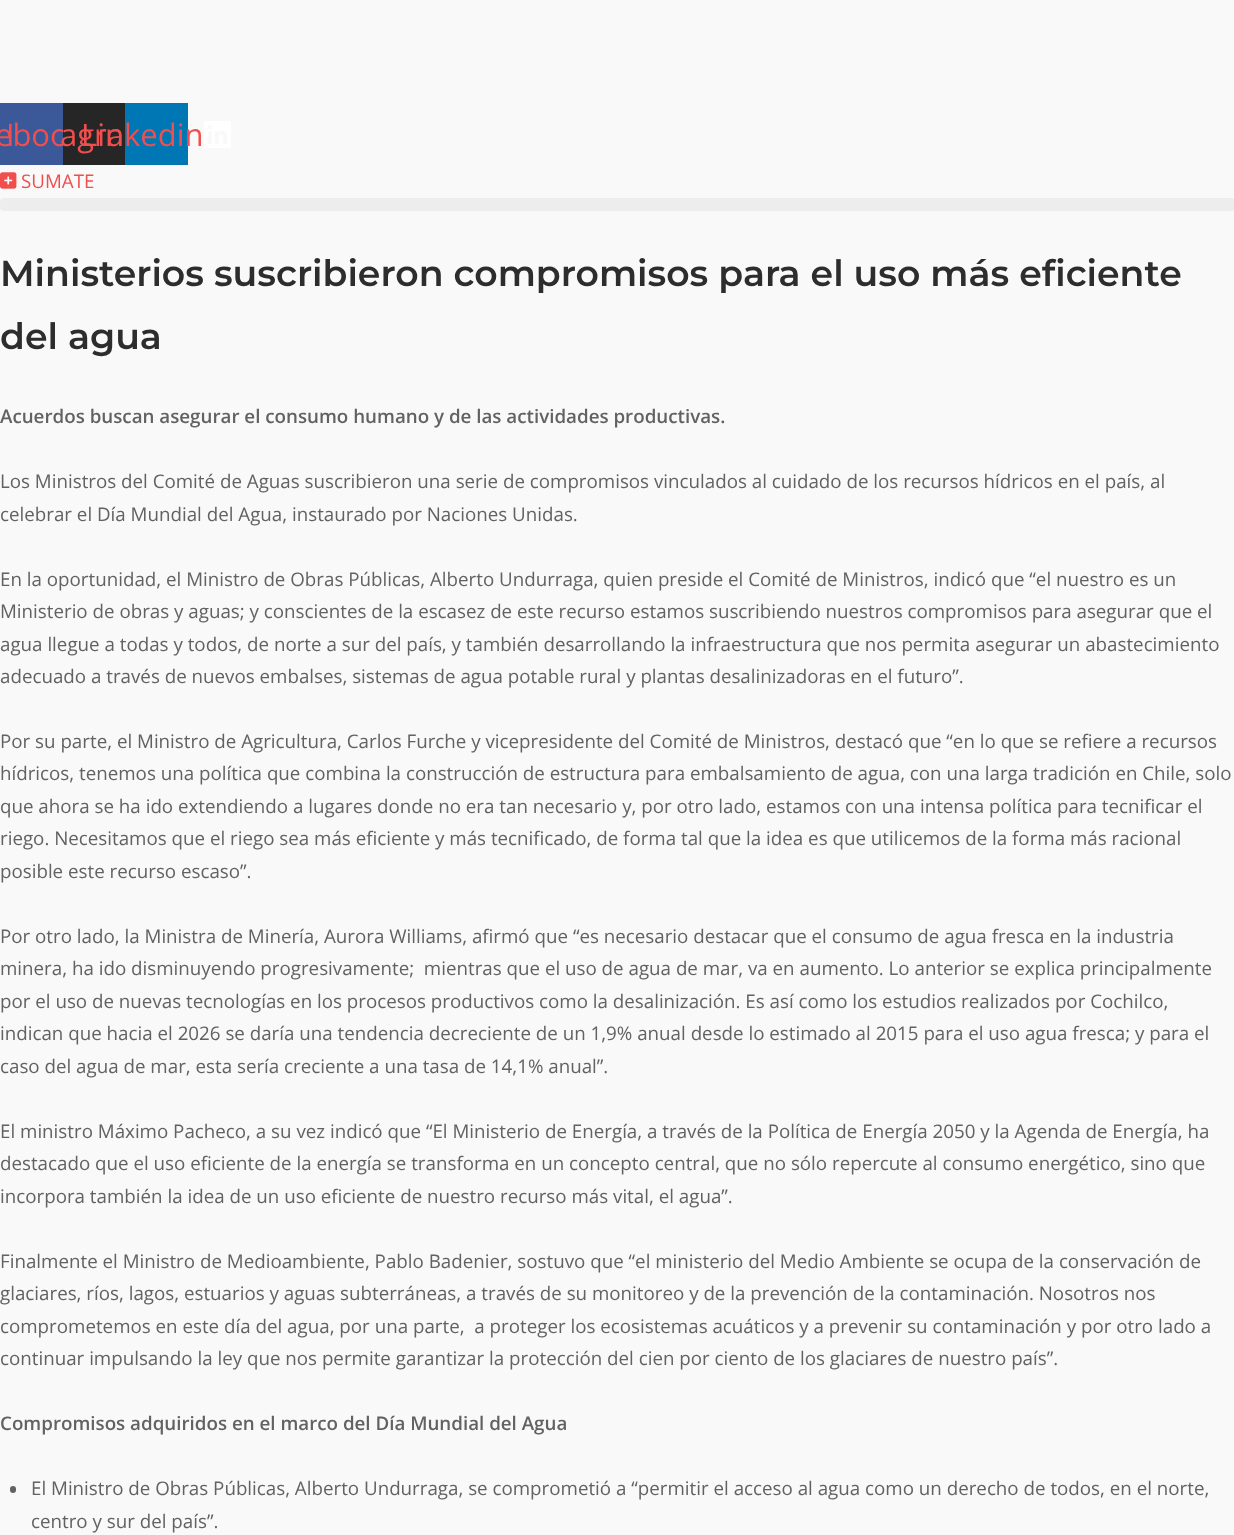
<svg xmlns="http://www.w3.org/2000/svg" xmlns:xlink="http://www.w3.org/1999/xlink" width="1234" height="1535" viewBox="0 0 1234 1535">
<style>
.cls-1{font:31px Open Sans;fill:#f14e4e}
.cls-2{font:18.75px Open Sans;fill:#f14e4e}
.cls-3{font:600 36.25px Montserrat;fill:#2d2d2d}
.cls-4{font:600 18.75px Open Sans;fill:#626262}
.cls-5{font:18.75px Open Sans;fill:#626262}
</style>
<rect width="100%" height="100%" fill="#f9f9f9"/>
<rect fill="#3b5998" x="0" y="103" width="63" height="62"/>
<rect fill="#0077b5" x="125" y="103" width="63" height="62"/>
<image xlink:href="image0.png" x="204" y="121" width="27" height="27"/>
<image xlink:href="image1.png" x="0" y="172" width="17" height="17"/>
<rect fill="#ededed" x="0" y="198" width="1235" height="13" rx="4"/>
<rect fill="#626262" x="10" y="1486" width="6" height="7" rx="3"/>
<text class="cls-1" x="-5" y="146">eboo</text>
<rect fill="#262626" x="63" y="103" width="62" height="62"/>
<text class="cls-1" x="6" y="146">I</text>
<text class="cls-1" x="60" y="146">agra</text>
<text class="cls-1" x="81" y="146">Linkedin</text>
<text class="cls-2" x="21" y="188">SUMATE</text>
<text class="cls-3"><tspan x="0" y="286">Ministerios suscribieron compromisos para el uso más eficiente</tspan><tspan x="0" y="349">del agua</tspan></text>
<text class="cls-4" x="0" y="423">Acuerdos buscan asegurar el consumo humano y de las actividades productivas.</text>
<text class="cls-5"><tspan x="0" y="488">Los Ministros del Comité de Aguas suscribieron una serie de compromisos vinculados al cuidado de los recursos hídricos en el país, al</tspan><tspan x="0" y="521">celebrar el Día Mundial del Agua, instaurado por Naciones Unidas.</tspan></text>
<text class="cls-5"><tspan x="0" y="586">En la oportunidad, el Ministro de Obras Públicas, Alberto Undurraga, quien preside el Comité de Ministros, indicó que “el nuestro es un</tspan><tspan x="0" y="618">Ministerio de obras y aguas; y conscientes de la escasez de este recurso estamos suscribiendo nuestros compromisos para asegurar que el</tspan><tspan x="0" y="651">agua llegue a todas y todos, de norte a sur del país, y también desarrollando la infraestructura que nos permita asegurar un abastecimiento</tspan><tspan x="0" y="683">adecuado a través de nuevos embalses, sistemas de agua potable rural y plantas desalinizadoras en el futuro”.</tspan></text>
<text class="cls-5"><tspan x="0" y="748">Por su parte, el Ministro de Agricultura, Carlos Furche y vicepresidente del Comité de Ministros, destacó que “en lo que se refiere a recursos</tspan><tspan x="0" y="780">hídricos, tenemos una política que combina la construcción de estructura para embalsamiento de agua, con una larga tradición en Chile, solo</tspan><tspan x="0" y="813">que ahora se ha ido extendiendo a lugares donde no era tan necesario y, por otro lado, estamos con una intensa política para tecnificar el</tspan><tspan x="0" y="845">riego. Necesitamos que el riego sea más eficiente y más tecnificado, de forma tal que la idea es que utilicemos de la forma más racional</tspan><tspan x="0" y="878">posible este recurso escaso”.</tspan></text>
<text class="cls-5" xml:space="preserve"><tspan x="0" y="943">Por otro lado, la Ministra de Minería, Aurora Williams, afirmó que “es necesario destacar que el consumo de agua fresca en la industria</tspan><tspan x="0" y="975">minera, ha ido disminuyendo progresivamente;  mientras que el uso de agua de mar, va en aumento. Lo anterior se explica principalmente</tspan><tspan x="0" y="1008">por el uso de nuevas tecnologías en los procesos productivos como la desalinización. Es así como los estudios realizados por Cochilco,</tspan><tspan x="0" y="1040">indican que hacia el 2026 se daría una tendencia decreciente de un 1,9% anual desde lo estimado al 2015 para el uso agua fresca; y para el</tspan><tspan x="0" y="1073">caso del agua de mar, esta sería creciente a una tasa de 14,1% anual”.</tspan></text>
<text class="cls-5"><tspan x="0" y="1138">El ministro Máximo Pacheco, a su vez indicó que “El Ministerio de Energía, a través de la Política de Energía 2050 y la Agenda de Energía, ha</tspan><tspan x="0" y="1170">destacado que el uso eficiente de la energía se transforma en un concepto central, que no sólo repercute al consumo energético, sino que</tspan><tspan x="0" y="1203">incorpora también la idea de un uso eficiente de nuestro recurso más vital, el agua”.</tspan></text>
<text class="cls-5" xml:space="preserve"><tspan x="0" y="1268">Finalmente el Ministro de Medioambiente, Pablo Badenier, sostuvo que “el ministerio del Medio Ambiente se ocupa de la conservación de</tspan><tspan x="0" y="1300">glaciares, ríos, lagos, estuarios y aguas subterráneas, a través de su monitoreo y de la prevención de la contaminación. Nosotros nos</tspan><tspan x="0" y="1333">comprometemos en este día del agua, por una parte,  a proteger los ecosistemas acuáticos y a prevenir su contaminación y por otro lado a</tspan><tspan x="0" y="1365">continuar impulsando la ley que nos permite garantizar la protección del cien por ciento de los glaciares de nuestro país”.</tspan></text>
<text class="cls-4" x="0" y="1430">Compromisos adquiridos en el marco del Día Mundial del Agua</text>
<text class="cls-5"><tspan x="31" y="1495">El Ministro de Obras Públicas, Alberto Undurraga, se comprometió a “permitir el acceso al agua como un derecho de todos, en el norte,</tspan><tspan x="31" y="1528">centro y sur del país”.</tspan></text>
</svg>
